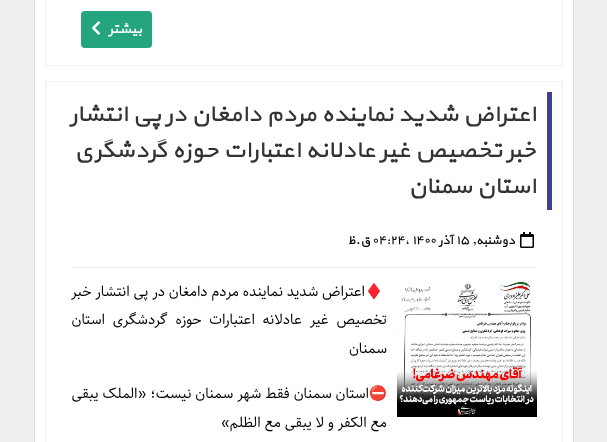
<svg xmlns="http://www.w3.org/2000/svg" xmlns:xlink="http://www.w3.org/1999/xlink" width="607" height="442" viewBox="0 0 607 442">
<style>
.cls-1{font:14.4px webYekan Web;direction:rtl;fill:#ffffff}
.cls-2{font:24px webYekan Web;direction:rtl;fill:#333333}
.cls-3{font:12.75px webYekan Web;direction:rtl;fill:#000000}
.cls-4{font:12.75px webYekan Web;fill:#000000}
.cls-5{font:14.4px Noto Color Emoji;direction:rtl;fill:#000000}
.cls-6{font:14.4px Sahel;direction:rtl;fill:#000000}
</style>
<rect width="100%" height="100%" fill="#eeeeee"/>
<rect fill="#ffffff" x="35" y="0" width="538" height="442"/>
<rect fill="#dddddd" x="573" y="0" width="1" height="442"/>
<rect fill="#dddddd" x="34" y="0" width="1" height="442"/>
<rect fill="none" stroke="#eeeeee" x="45.5" y="-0.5" width="517" height="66"/>
<rect fill="#24a57f" x="81" y="11" width="71" height="37" rx="4"/>
<image xlink:href="image0.png" x="91" y="21" width="10" height="14"/>
<rect fill="none" stroke="#eeeeee" x="45.5" y="81.5" width="517" height="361"/>
<rect fill="#3f3f90" x="547" y="92" width="5" height="118"/>
<rect fill="#eeeeee" x="71" y="267" width="466" height="1"/>
<image xlink:href="image1.png" x="520" y="232" width="14" height="16"/>
<image xlink:href="image2.png" x="397" y="281" width="140" height="136"/>
<text class="cls-1" x="142" y="33">بیشتر</text>
<text class="cls-2"><tspan x="536" y="121">اعتراض شدید نماینده مردم دامغان در پی انتشار</tspan><tspan x="536" y="157">خبر تخصیص غیر عادلانه اعتبارات حوزه گردشگری</tspan><tspan x="536" y="193">استان سمنان</tspan></text>
<text class="cls-3" x="515" y="244">دوشنبه,</text>
<text class="cls-4" x="456" y="244">۱۵</text>
<text class="cls-3" x="453" y="244">آذر</text>
<text class="cls-4" x="372" y="244">۰۴:۲۴، ۱۴۰۰</text>
<text class="cls-3" x="370" y="244">ق.ظ</text>
<text class="cls-5" x="383" y="296">♦️</text>
<text class="cls-6" x="365" y="296">اعتراض شدید نماینده مردم دامغان در پی انتشار خبر</text>
<text class="cls-6" x="387" y="324" word-spacing="4">تخصیص غیر عادلانه اعتبارات حوزه گردشگری استان</text>
<text class="cls-6" x="387" y="353">سمنان</text>
<text class="cls-5" x="387" y="398">⛔️</text>
<text class="cls-6" x="369" y="398">استان سمنان فقط شهر سمنان نیست؛ «الملک یبقی</text>
<text class="cls-6" x="387" y="427">مع الکفر و لا یبقی مع الظلم»</text>
</svg>
